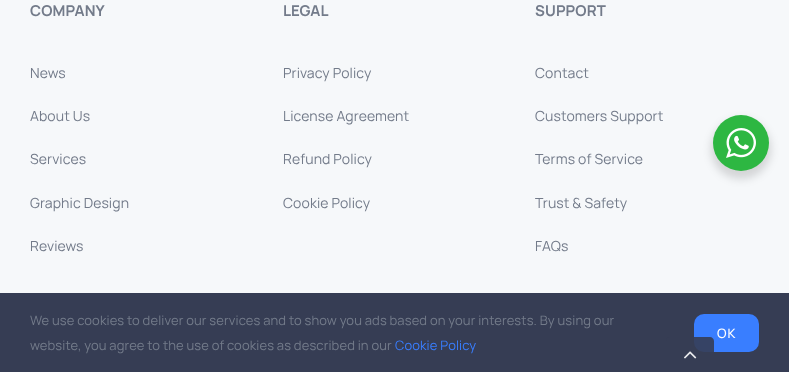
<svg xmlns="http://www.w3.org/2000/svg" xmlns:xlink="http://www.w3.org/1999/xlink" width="789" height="372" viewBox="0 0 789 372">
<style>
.cls-1{font:bold 15px Manrope;letter-spacing:0.12px;fill:#737b8a}
.cls-2{font:14px Manrope;letter-spacing:0.1px;fill:#737b8a}
.cls-3{font:13px Manrope;letter-spacing:0.12px;fill:#737b8a}
.cls-4{font:13px Manrope;letter-spacing:0.12px;fill:#397eff}
.cls-5{font:500 13px Manrope;letter-spacing:1px;fill:#ffffff}
</style>
<rect width="100%" height="100%" fill="#f6f8fa"/>
<rect fill="#000000" fill-opacity="0.14" filter="blur(4px)" x="711" y="119" width="60" height="60" rx="30"/>
<circle fill="#2db742" cx="741" cy="143" r="28"/>
<image xlink:href="image0.png" x="726" y="128" width="30" height="30"/>
<rect fill="#363d54" x="0" y="293" width="789" height="79"/>
<rect fill="#397eff" x="694" y="314" width="65" height="38" rx="10"/>
<path fill="#363d54" fill-opacity="0.9" d="M670 337H710C712 337 714 339 714 341V372H666V341C666 339 668 337 670 337Z"/>
<image xlink:href="image1.png" x="684" y="351" width="13" height="8"/>
<text class="cls-1" x="30" y="16">COMPANY</text>
<text class="cls-2" x="30" y="78">News</text>
<text class="cls-2" x="30" y="121">About Us</text>
<text class="cls-2" x="30" y="164">Services</text>
<text class="cls-2" x="30" y="208">Graphic Design</text>
<text class="cls-2" x="30" y="251">Reviews</text>
<text class="cls-1" x="283" y="16">LEGAL</text>
<text class="cls-2" x="283" y="78">Privacy Policy</text>
<text class="cls-2" x="283" y="121">License Agreement</text>
<text class="cls-2" x="283" y="164">Refund Policy</text>
<text class="cls-2" x="283" y="208">Cookie Policy</text>
<text class="cls-1" x="535" y="16">SUPPORT</text>
<text class="cls-2" x="535" y="78">Contact</text>
<text class="cls-2" x="535" y="121">Customers Support</text>
<text class="cls-2" x="535" y="164">Terms of Service</text>
<text class="cls-2" x="535" y="208">Trust &amp; Safety</text>
<text class="cls-2" x="535" y="251">FAQs</text>
<text class="cls-3"><tspan x="30" y="325">We use cookies to deliver our services and to show you ads based on your interests. By using our</tspan><tspan x="30" y="350">website, you agree to the use of cookies as described in our</tspan></text>
<text class="cls-4" x="395" y="350">Cookie Policy</text>
<text class="cls-5" x="717" y="338">OK</text>
</svg>
